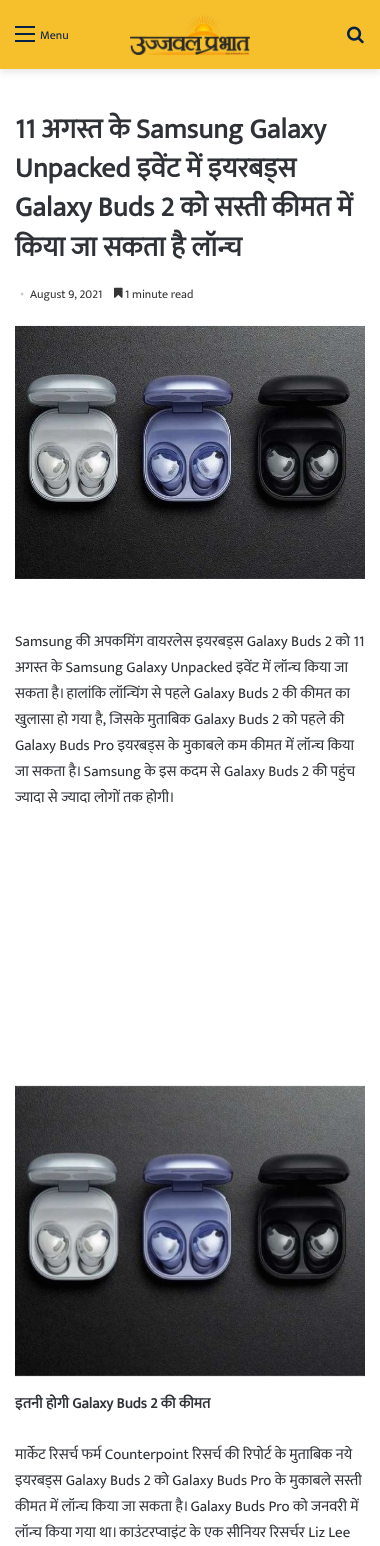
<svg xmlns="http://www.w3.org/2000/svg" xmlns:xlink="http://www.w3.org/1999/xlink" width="380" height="1546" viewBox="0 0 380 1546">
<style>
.cls-1{font:12px Mukta;fill:#062149}
.cls-2{font:bold 28px Mukta;fill:#2e3136}
.cls-3{font:12px Liberation Serif;fill:#cdcdcd}
.cls-4{font:12px Mukta;fill:#353535}
.cls-5{font:15px Mukta;fill:#2e3136}
.cls-6{font:bold 15px Mukta;fill:#2e3136}
</style>
<rect width="100%" height="100%" fill="#ffffff"/>
<rect fill="#000000" fill-opacity="0.1" filter="blur(3.5px)" x="0" y="3" width="380" height="69"/>
<rect fill="#f6c02c" x="0" y="0" width="380" height="69"/>
<rect fill="#062149" x="15" y="33" width="20" height="2"/>
<rect fill="#062149" x="15" y="26" width="20" height="2"/>
<rect fill="#062149" x="15" y="40" width="20" height="2"/>
<image xlink:href="image0.png" x="130" y="15" width="120" height="40"/>
<image xlink:href="image1.png" x="347" y="26" width="17" height="18"/>
<image xlink:href="image2.png" x="114" y="287" width="9" height="11"/>
<image xlink:href="image3.png" x="15" y="325" width="350" height="254"/>
<image xlink:href="image4.png" x="15" y="1085" width="350" height="292"/>
<text class="cls-1" x="40" y="39">Menu</text>
<text class="cls-2"><tspan x="15" y="138">11 अगस्त के Samsung Galaxy</tspan><tspan x="15" y="177">Unpacked इवेंट में इयरबड्स</tspan><tspan x="15" y="216">Galaxy Buds 2 को सस्ती कीमत में</tspan><tspan x="15" y="256">किया जा सकता है लॉन्च</tspan></text>
<text class="cls-3" x="20" y="298">•</text>
<text class="cls-4" x="30" y="298">August 9, 2021</text>
<text class="cls-4" x="125" y="298">1 minute read</text>
<text class="cls-5"><tspan x="15" y="646">Samsung की अपकमिंग वायरलेस इयरबड्स Galaxy Buds 2 को 11</tspan><tspan x="15" y="672">अगस्त के Samsung Galaxy Unpacked इवेंट में लॉन्च किया जा</tspan><tspan x="15" y="698">सकता है। हालांकि लॉन्चिंग से पहले Galaxy Buds 2 की कीमत का</tspan><tspan x="15" y="724">खुलासा हो गया है, जिसके मुताबिक Galaxy Buds 2 को पहले की</tspan><tspan x="15" y="750">Galaxy Buds Pro इयरबड्स के मुकाबले कम कीमत में लॉन्च किया</tspan><tspan x="15" y="776">जा सकता है। Samsung के इस कदम से Galaxy Buds 2 की पहुंच</tspan><tspan x="15" y="802">ज्यादा से ज्यादा लोगों तक होगी।</tspan></text>
<text class="cls-6" x="15" y="1408">इतनी होगी Galaxy Buds 2 की कीमत</text>
<text class="cls-5"><tspan x="15" y="1459">मार्केट रिसर्च फर्म Counterpoint रिसर्च की रिपोर्ट के मुताबिक नये</tspan><tspan x="15" y="1485">इयरबड्स Galaxy Buds 2 को Galaxy Buds Pro के मुकाबले सस्ती</tspan><tspan x="15" y="1511">कीमत में लॉन्च किया जा सकता है। Galaxy Buds Pro को जनवरी में</tspan><tspan x="15" y="1537">लॉन्च किया गया था। काउंटरप्वाइंट के एक सीनियर रिसर्चर Liz Lee</tspan></text>
</svg>
